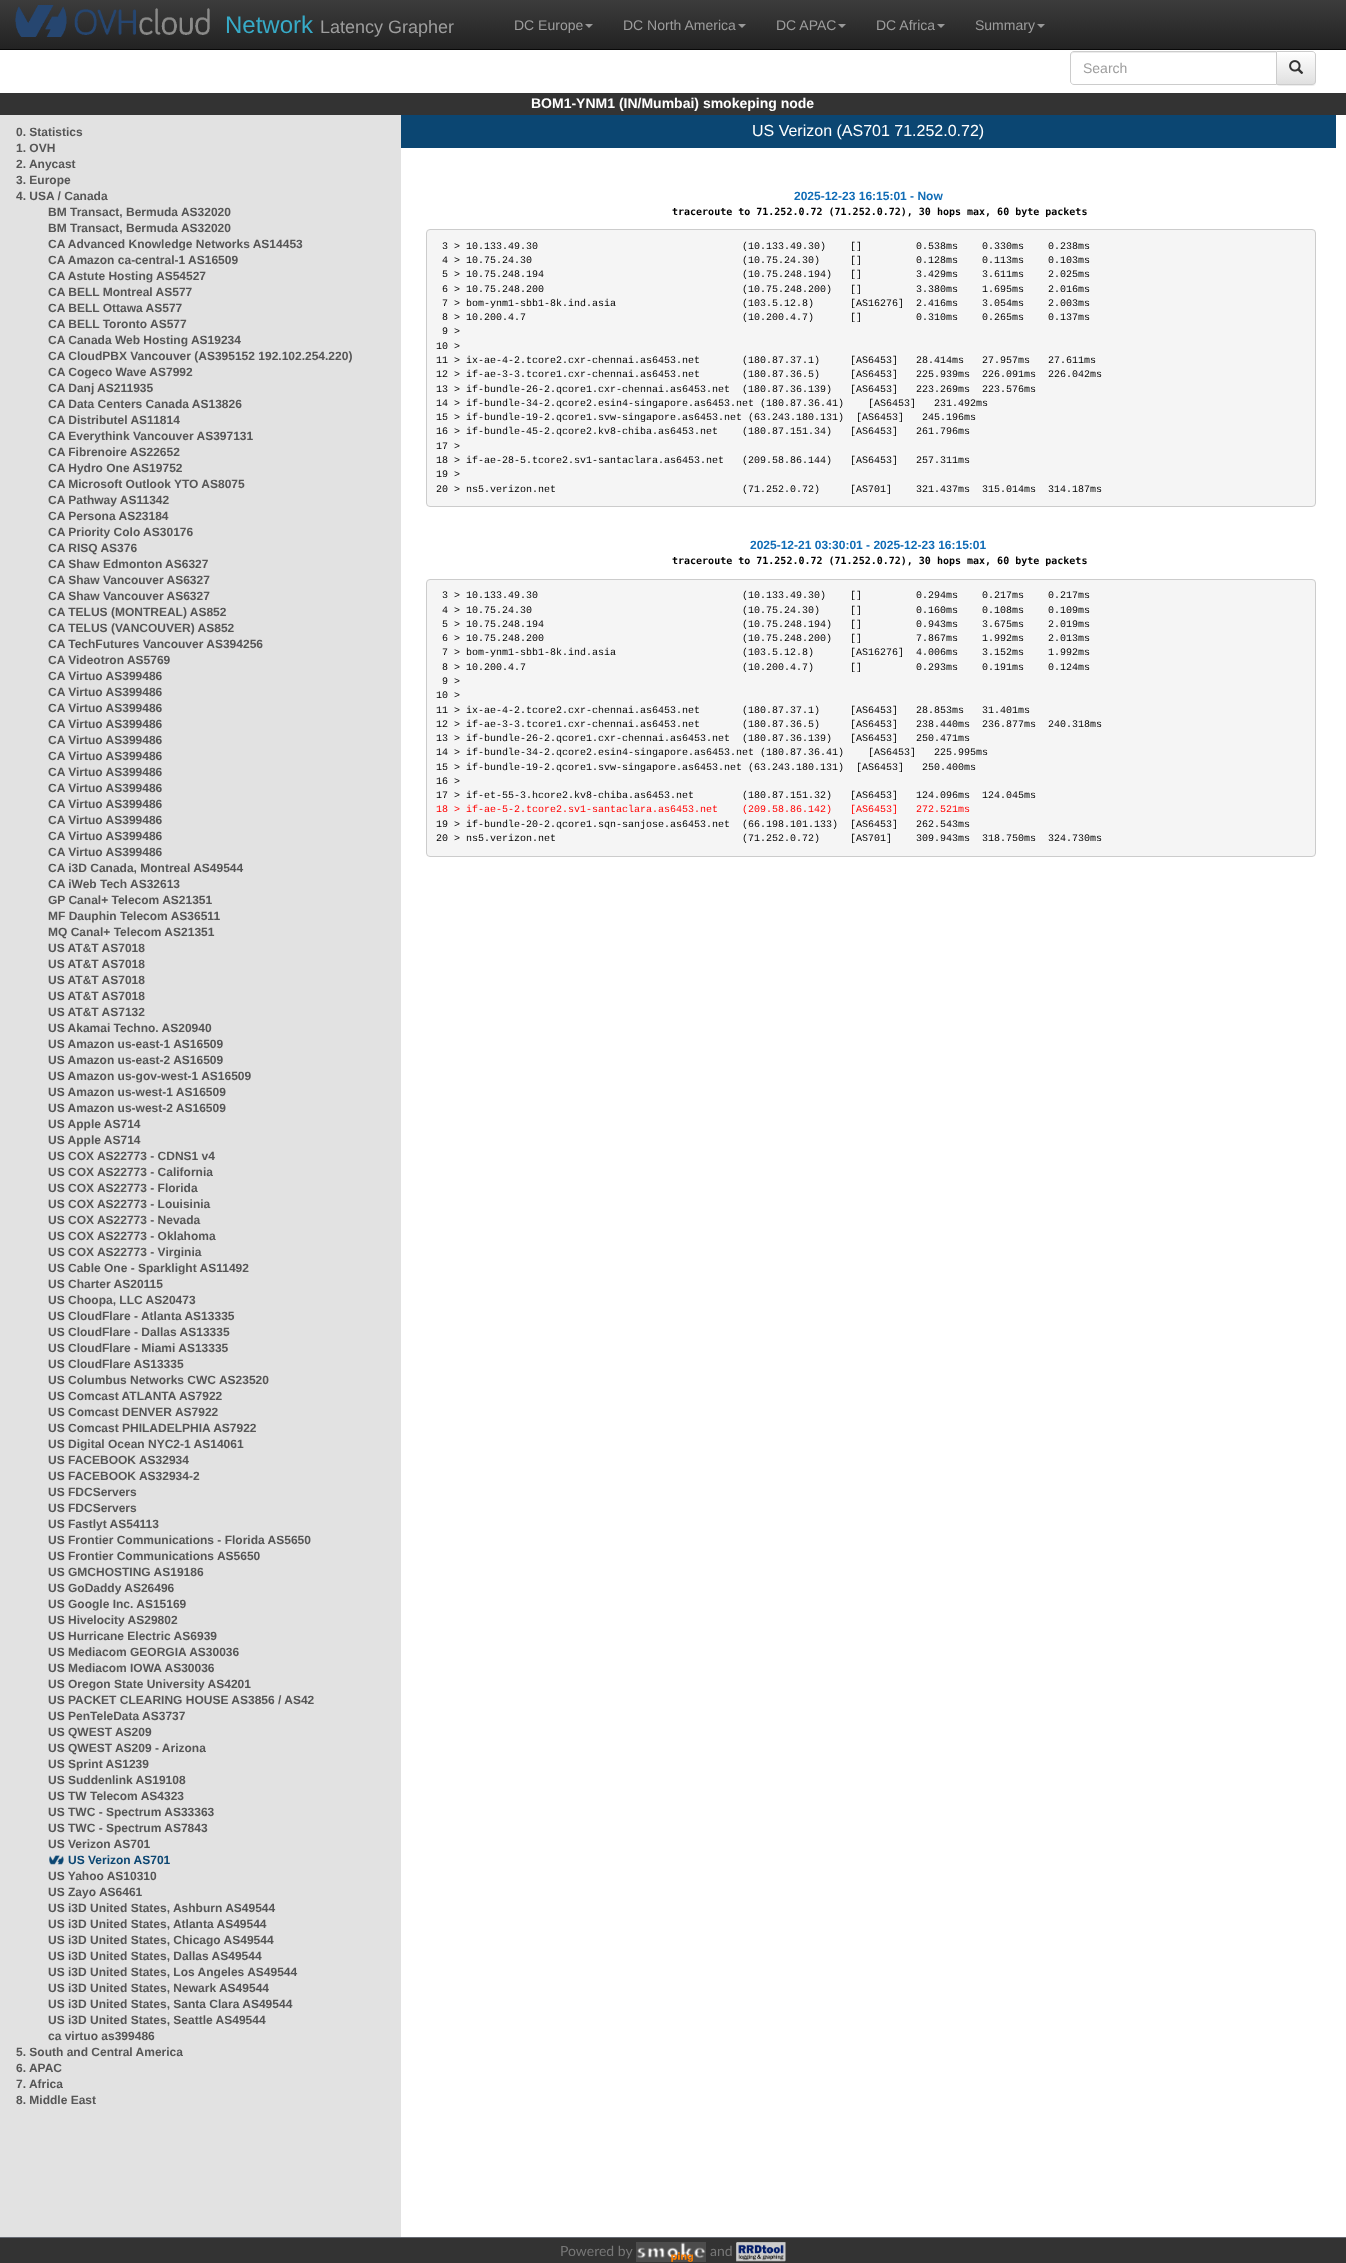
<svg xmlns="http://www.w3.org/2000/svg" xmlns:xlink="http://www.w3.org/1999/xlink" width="1346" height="2263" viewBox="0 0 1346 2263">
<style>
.cls-1{font:24px Liberation Sans;fill:#37abc8}
.cls-2{font:18px Liberation Sans;fill:#9d9d9d}
.cls-3{font:14px Liberation Sans;fill:#9d9d9d}
.cls-4{font:bold 14px Liberation Sans;fill:#ffffff}
.cls-5{font:bold 12px Liberation Sans;fill:#565656}
.cls-6{font:bold 12px Liberation Sans;fill:#0b4672}
.cls-7{font:16px Liberation Sans;fill:#ffffff}
.cls-8{font:bold 12px Liberation Sans;fill:#106cb6}
.cls-9{font:bold 10px DejaVu Sans Mono;fill:#000000}
.cls-10{font:10px Liberation Mono;fill:#000000}
.cls-11{font:10px Liberation Mono;fill:#ff0000}
.cls-12{font:14px Lato;fill:#777777}
</style>
<defs>
<linearGradient id="g1" gradientUnits="userSpaceOnUse" x1="673" y1="0" x2="673" y2="49"><stop offset="0" stop-color="#3c3c3c"/><stop offset="1" stop-color="#222222"/></linearGradient>
<clipPath id="clip1"><path d="M1276 51H1312C1314 51 1316 53 1316 55V81C1316 83 1314 85 1312 85H1276Z"/></clipPath>
<linearGradient id="g2" gradientUnits="userSpaceOnUse" x1="1296" y1="52" x2="1296" y2="84"><stop offset="0" stop-color="#ffffff"/><stop offset="1" stop-color="#e0e0e0"/></linearGradient>
</defs>
<rect width="100%" height="100%" fill="#ffffff"/>
<rect fill="url(#g1)" x="0" y="0" width="1346" height="49"/>
<rect fill="#080808" x="0" y="49" width="1346" height="1"/>
<image xlink:href="image0.png" x="15" y="5" width="195" height="32"/>
<path fill="#999999" d="M585 24H593L589 28Z"/>
<path fill="#999999" d="M738 24H746L742 28Z"/>
<path fill="#999999" d="M838 24H846L842 28Z"/>
<path fill="#999999" d="M937 24H945L941 28Z"/>
<path fill="#999999" d="M1037 24H1045L1041 28Z"/>
<rect fill="#000000" fill-opacity="0.07" filter="blur(0.5px)" x="1276" y="52" width="40" height="34" rx="4"/>
<g clip-path="url(#clip1)">
<rect fill="url(#g2)" x="1277" y="52" width="39" height="32"/>
</g>
<path fill="none" stroke="#cccccc" d="M1276.5 51.5H1312C1314 51.5 1315.5 53 1315.5 55V81C1315.5 83 1314 84.5 1312 84.5H1276.5Z"/>
<path fill="#ffffff" d="M1074 51H1277V85H1074C1072 85 1070 83 1070 81V55C1070 53 1072 51 1074 51Z"/>
<path fill="#ececec" d="M1074 53H1276V52H1073C1071 53 1071 54 1071 56C1071 54 1072 53 1074 53Z"/>
<path fill="none" stroke="#cccccc" d="M1074 51.5H1276.5V84.5H1074C1072 84.5 1070.5 83 1070.5 81V55C1070.5 53 1072 51.5 1074 51.5Z"/>
<image xlink:href="image1.png" x="1289" y="60" width="15" height="14"/>
<rect fill="#333333" x="0" y="93" width="1346" height="22"/>
<rect fill="#e2e2e2" x="0" y="115" width="401" height="2122"/>
<image xlink:href="image2.png" x="49" y="1855" width="15" height="10"/>
<rect fill="#0b4672" x="401" y="115" width="935" height="33"/>
<rect fill="#f5f5f5" stroke="#cccccc" x="426.5" y="229.5" width="889" height="277" rx="3.5"/>
<rect fill="#f5f5f5" stroke="#cccccc" x="426.5" y="579.5" width="889" height="277" rx="3.5"/>
<rect fill="#333333" x="0" y="2238" width="1346" height="25"/>
<rect fill="#666a73" x="0" y="2237" width="1346" height="1"/>
<image xlink:href="image3.png" x="636" y="2242" width="70" height="20"/>
<image xlink:href="image4.png" x="736" y="2242" width="50" height="20"/>
<text class="cls-1" x="225" y="33">Network</text>
<text class="cls-2" x="320" y="33">Latency Grapher</text>
<text class="cls-3" x="514" y="30">DC Europe</text>
<text class="cls-3" x="623" y="30">DC North America</text>
<text class="cls-3" x="776" y="30">DC APAC</text>
<text class="cls-3" x="876" y="30">DC Africa</text>
<text class="cls-3" x="975" y="30">Summary</text>
<text class="cls-3" x="1083" y="73">Search</text>
<text class="cls-4" x="531" y="108">BOM1-YNM1 (IN/Mumbai) smokeping node</text>
<text class="cls-5"><tspan x="16" y="136">0. Statistics</tspan><tspan x="16" y="152">1. OVH</tspan><tspan x="16" y="168">2. Anycast</tspan><tspan x="16" y="184">3. Europe</tspan><tspan x="16" y="200">4. USA / Canada</tspan></text>
<text class="cls-5"><tspan x="48" y="216">BM Transact, Bermuda AS32020</tspan><tspan x="48" y="232">BM Transact, Bermuda AS32020</tspan><tspan x="48" y="248">CA Advanced Knowledge Networks AS14453</tspan><tspan x="48" y="264">CA Amazon ca-central-1 AS16509</tspan><tspan x="48" y="280">CA Astute Hosting AS54527</tspan><tspan x="48" y="296">CA BELL Montreal AS577</tspan><tspan x="48" y="312">CA BELL Ottawa AS577</tspan><tspan x="48" y="328">CA BELL Toronto AS577</tspan><tspan x="48" y="344">CA Canada Web Hosting AS19234</tspan><tspan x="48" y="360">CA CloudPBX Vancouver (AS395152 192.102.254.220)</tspan><tspan x="48" y="376">CA Cogeco Wave AS7992</tspan><tspan x="48" y="392">CA Danj AS211935</tspan><tspan x="48" y="408">CA Data Centers Canada AS13826</tspan><tspan x="48" y="424">CA Distributel AS11814</tspan><tspan x="48" y="440">CA Everythink Vancouver AS397131</tspan><tspan x="48" y="456">CA Fibrenoire AS22652</tspan><tspan x="48" y="472">CA Hydro One AS19752</tspan><tspan x="48" y="488">CA Microsoft Outlook YTO AS8075</tspan><tspan x="48" y="504">CA Pathway AS11342</tspan><tspan x="48" y="520">CA Persona AS23184</tspan><tspan x="48" y="536">CA Priority Colo AS30176</tspan><tspan x="48" y="552">CA RISQ AS376</tspan><tspan x="48" y="568">CA Shaw Edmonton AS6327</tspan><tspan x="48" y="584">CA Shaw Vancouver AS6327</tspan><tspan x="48" y="600">CA Shaw Vancouver AS6327</tspan><tspan x="48" y="616">CA TELUS (MONTREAL) AS852</tspan><tspan x="48" y="632">CA TELUS (VANCOUVER) AS852</tspan><tspan x="48" y="648">CA TechFutures Vancouver AS394256</tspan><tspan x="48" y="664">CA Videotron AS5769</tspan><tspan x="48" y="680">CA Virtuo AS399486</tspan><tspan x="48" y="696">CA Virtuo AS399486</tspan><tspan x="48" y="712">CA Virtuo AS399486</tspan><tspan x="48" y="728">CA Virtuo AS399486</tspan><tspan x="48" y="744">CA Virtuo AS399486</tspan><tspan x="48" y="760">CA Virtuo AS399486</tspan><tspan x="48" y="776">CA Virtuo AS399486</tspan><tspan x="48" y="792">CA Virtuo AS399486</tspan><tspan x="48" y="808">CA Virtuo AS399486</tspan><tspan x="48" y="824">CA Virtuo AS399486</tspan><tspan x="48" y="840">CA Virtuo AS399486</tspan><tspan x="48" y="856">CA Virtuo AS399486</tspan><tspan x="48" y="872">CA i3D Canada, Montreal AS49544</tspan><tspan x="48" y="888">CA iWeb Tech AS32613</tspan><tspan x="48" y="904">GP Canal+ Telecom AS21351</tspan><tspan x="48" y="920">MF Dauphin Telecom AS36511</tspan><tspan x="48" y="936">MQ Canal+ Telecom AS21351</tspan><tspan x="48" y="952">US AT&amp;T AS7018</tspan><tspan x="48" y="968">US AT&amp;T AS7018</tspan><tspan x="48" y="984">US AT&amp;T AS7018</tspan><tspan x="48" y="1000">US AT&amp;T AS7018</tspan><tspan x="48" y="1016">US AT&amp;T AS7132</tspan><tspan x="48" y="1032">US Akamai Techno. AS20940</tspan><tspan x="48" y="1048">US Amazon us-east-1 AS16509</tspan><tspan x="48" y="1064">US Amazon us-east-2 AS16509</tspan><tspan x="48" y="1080">US Amazon us-gov-west-1 AS16509</tspan><tspan x="48" y="1096">US Amazon us-west-1 AS16509</tspan><tspan x="48" y="1112">US Amazon us-west-2 AS16509</tspan><tspan x="48" y="1128">US Apple AS714</tspan><tspan x="48" y="1144">US Apple AS714</tspan><tspan x="48" y="1160">US COX AS22773 - CDNS1 v4</tspan><tspan x="48" y="1176">US COX AS22773 - California</tspan><tspan x="48" y="1192">US COX AS22773 - Florida</tspan><tspan x="48" y="1208">US COX AS22773 - Louisinia</tspan><tspan x="48" y="1224">US COX AS22773 - Nevada</tspan><tspan x="48" y="1240">US COX AS22773 - Oklahoma</tspan><tspan x="48" y="1256">US COX AS22773 - Virginia</tspan><tspan x="48" y="1272">US Cable One - Sparklight AS11492</tspan><tspan x="48" y="1288">US Charter AS20115</tspan><tspan x="48" y="1304">US Choopa, LLC AS20473</tspan><tspan x="48" y="1320">US CloudFlare - Atlanta AS13335</tspan><tspan x="48" y="1336">US CloudFlare - Dallas AS13335</tspan><tspan x="48" y="1352">US CloudFlare - Miami AS13335</tspan><tspan x="48" y="1368">US CloudFlare AS13335</tspan><tspan x="48" y="1384">US Columbus Networks CWC AS23520</tspan><tspan x="48" y="1400">US Comcast ATLANTA AS7922</tspan><tspan x="48" y="1416">US Comcast DENVER AS7922</tspan><tspan x="48" y="1432">US Comcast PHILADELPHIA AS7922</tspan><tspan x="48" y="1448">US Digital Ocean NYC2-1 AS14061</tspan><tspan x="48" y="1464">US FACEBOOK AS32934</tspan><tspan x="48" y="1480">US FACEBOOK AS32934-2</tspan><tspan x="48" y="1496">US FDCServers</tspan><tspan x="48" y="1512">US FDCServers</tspan><tspan x="48" y="1528">US Fastlyt AS54113</tspan><tspan x="48" y="1544">US Frontier Communications - Florida AS5650</tspan><tspan x="48" y="1560">US Frontier Communications AS5650</tspan><tspan x="48" y="1576">US GMCHOSTING AS19186</tspan><tspan x="48" y="1592">US GoDaddy AS26496</tspan><tspan x="48" y="1608">US Google Inc. AS15169</tspan><tspan x="48" y="1624">US Hivelocity AS29802</tspan><tspan x="48" y="1640">US Hurricane Electric AS6939</tspan><tspan x="48" y="1656">US Mediacom GEORGIA AS30036</tspan><tspan x="48" y="1672">US Mediacom IOWA AS30036</tspan><tspan x="48" y="1688">US Oregon State University AS4201</tspan><tspan x="48" y="1704">US PACKET CLEARING HOUSE AS3856 / AS42</tspan><tspan x="48" y="1720">US PenTeleData AS3737</tspan><tspan x="48" y="1736">US QWEST AS209</tspan><tspan x="48" y="1752">US QWEST AS209 - Arizona</tspan><tspan x="48" y="1768">US Sprint AS1239</tspan><tspan x="48" y="1784">US Suddenlink AS19108</tspan><tspan x="48" y="1800">US TW Telecom AS4323</tspan><tspan x="48" y="1816">US TWC - Spectrum AS33363</tspan><tspan x="48" y="1832">US TWC - Spectrum AS7843</tspan><tspan x="48" y="1848">US Verizon AS701</tspan></text>
<text class="cls-6" x="68" y="1864">US Verizon AS701</text>
<text class="cls-5"><tspan x="48" y="1880">US Yahoo AS10310</tspan><tspan x="48" y="1896">US Zayo AS6461</tspan><tspan x="48" y="1912">US i3D United States, Ashburn AS49544</tspan><tspan x="48" y="1928">US i3D United States, Atlanta AS49544</tspan><tspan x="48" y="1944">US i3D United States, Chicago AS49544</tspan><tspan x="48" y="1960">US i3D United States, Dallas AS49544</tspan><tspan x="48" y="1976">US i3D United States, Los Angeles AS49544</tspan><tspan x="48" y="1992">US i3D United States, Newark AS49544</tspan><tspan x="48" y="2008">US i3D United States, Santa Clara AS49544</tspan><tspan x="48" y="2024">US i3D United States, Seattle AS49544</tspan><tspan x="48" y="2040">ca virtuo as399486</tspan></text>
<text class="cls-5"><tspan x="16" y="2056">5. South and Central America</tspan><tspan x="16" y="2072">6. APAC</tspan><tspan x="16" y="2088">7. Africa</tspan><tspan x="16" y="2104">8. Middle East</tspan></text>
<text class="cls-7" x="752" y="136">US Verizon (AS701 71.252.0.72)</text>
<text class="cls-8" x="794" y="200">2025-12-23 16:15:01 - Now</text>
<text class="cls-9" x="672" y="215">traceroute to 71.252.0.72 (71.252.0.72), 30 hops max, 60 byte packets</text>
<text class="cls-10" xml:space="preserve"><tspan x="442" y="249">3 &gt; 10.133.49.30                                  (10.133.49.30)    []         0.538ms    0.330ms    0.238ms</tspan><tspan x="442" y="263">4 &gt; 10.75.24.30                                   (10.75.24.30)     []         0.128ms    0.113ms    0.103ms</tspan><tspan x="442" y="277">5 &gt; 10.75.248.194                                 (10.75.248.194)   []         3.429ms    3.611ms    2.025ms</tspan><tspan x="442" y="292">6 &gt; 10.75.248.200                                 (10.75.248.200)   []         3.380ms    1.695ms    2.016ms</tspan><tspan x="442" y="306">7 &gt; bom-ynm1-sbb1-8k.ind.asia                     (103.5.12.8)      [AS16276]  2.416ms    3.054ms    2.003ms</tspan><tspan x="442" y="320">8 &gt; 10.200.4.7                                    (10.200.4.7)      []         0.310ms    0.265ms    0.137ms</tspan><tspan x="442" y="334">9 &gt;</tspan></text>
<text class="cls-10" xml:space="preserve"><tspan x="436" y="349">10 &gt;</tspan><tspan x="436" y="363">11 &gt; ix-ae-4-2.tcore2.cxr-chennai.as6453.net       (180.87.37.1)     [AS6453]   28.414ms   27.957ms   27.611ms</tspan><tspan x="436" y="377">12 &gt; if-ae-3-3.tcore1.cxr-chennai.as6453.net       (180.87.36.5)     [AS6453]   225.939ms  226.091ms  226.042ms</tspan><tspan x="436" y="392">13 &gt; if-bundle-26-2.qcore1.cxr-chennai.as6453.net  (180.87.36.139)   [AS6453]   223.269ms  223.576ms</tspan><tspan x="436" y="406">14 &gt; if-bundle-34-2.qcore2.esin4-singapore.as6453.net (180.87.36.41)    [AS6453]   231.492ms</tspan><tspan x="436" y="420">15 &gt; if-bundle-19-2.qcore1.svw-singapore.as6453.net (63.243.180.131)  [AS6453]   245.196ms</tspan><tspan x="436" y="434">16 &gt; if-bundle-45-2.qcore2.kv8-chiba.as6453.net    (180.87.151.34)   [AS6453]   261.796ms</tspan><tspan x="436" y="449">17 &gt;</tspan><tspan x="436" y="463">18 &gt; if-ae-28-5.tcore2.sv1-santaclara.as6453.net   (209.58.86.144)   [AS6453]   257.311ms</tspan><tspan x="436" y="477">19 &gt;</tspan><tspan x="436" y="492">20 &gt; ns5.verizon.net                               (71.252.0.72)     [AS701]    321.437ms  315.014ms  314.187ms</tspan></text>
<text class="cls-8" x="750" y="549">2025-12-21 03:30:01 - 2025-12-23 16:15:01</text>
<text class="cls-9" x="672" y="564">traceroute to 71.252.0.72 (71.252.0.72), 30 hops max, 60 byte packets</text>
<text class="cls-10" xml:space="preserve"><tspan x="442" y="598">3 &gt; 10.133.49.30                                  (10.133.49.30)    []         0.294ms    0.217ms    0.217ms</tspan><tspan x="442" y="613">4 &gt; 10.75.24.30                                   (10.75.24.30)     []         0.160ms    0.108ms    0.109ms</tspan><tspan x="442" y="627">5 &gt; 10.75.248.194                                 (10.75.248.194)   []         0.943ms    3.675ms    2.019ms</tspan><tspan x="442" y="641">6 &gt; 10.75.248.200                                 (10.75.248.200)   []         7.867ms    1.992ms    2.013ms</tspan><tspan x="442" y="655">7 &gt; bom-ynm1-sbb1-8k.ind.asia                     (103.5.12.8)      [AS16276]  4.006ms    3.152ms    1.992ms</tspan><tspan x="442" y="670">8 &gt; 10.200.4.7                                    (10.200.4.7)      []         0.293ms    0.191ms    0.124ms</tspan><tspan x="442" y="684">9 &gt;</tspan></text>
<text class="cls-10" xml:space="preserve"><tspan x="436" y="698">10 &gt;</tspan><tspan x="436" y="713">11 &gt; ix-ae-4-2.tcore2.cxr-chennai.as6453.net       (180.87.37.1)     [AS6453]   28.853ms   31.401ms</tspan><tspan x="436" y="727">12 &gt; if-ae-3-3.tcore1.cxr-chennai.as6453.net       (180.87.36.5)     [AS6453]   238.440ms  236.877ms  240.318ms</tspan><tspan x="436" y="741">13 &gt; if-bundle-26-2.qcore1.cxr-chennai.as6453.net  (180.87.36.139)   [AS6453]   250.471ms</tspan><tspan x="436" y="755">14 &gt; if-bundle-34-2.qcore2.esin4-singapore.as6453.net (180.87.36.41)    [AS6453]   225.995ms</tspan><tspan x="436" y="770">15 &gt; if-bundle-19-2.qcore1.svw-singapore.as6453.net (63.243.180.131)  [AS6453]   250.400ms</tspan><tspan x="436" y="784">16 &gt;</tspan><tspan x="436" y="798">17 &gt; if-et-55-3.hcore2.kv8-chiba.as6453.net        (180.87.151.32)   [AS6453]   124.096ms  124.045ms</tspan></text>
<text class="cls-11" xml:space="preserve" x="436" y="812">18 &gt; if-ae-5-2.tcore2.sv1-santaclara.as6453.net    (209.58.86.142)   [AS6453]   272.521ms</text>
<text class="cls-10" xml:space="preserve"><tspan x="436" y="827">19 &gt; if-bundle-20-2.qcore1.sqn-sanjose.as6453.net  (66.198.101.133)  [AS6453]   262.543ms</tspan><tspan x="436" y="841">20 &gt; ns5.verizon.net                               (71.252.0.72)     [AS701]    309.943ms  318.750ms  324.730ms</tspan></text>
<text class="cls-12" x="560" y="2256">Powered by</text>
<text class="cls-12" x="710" y="2256">and</text>
</svg>
